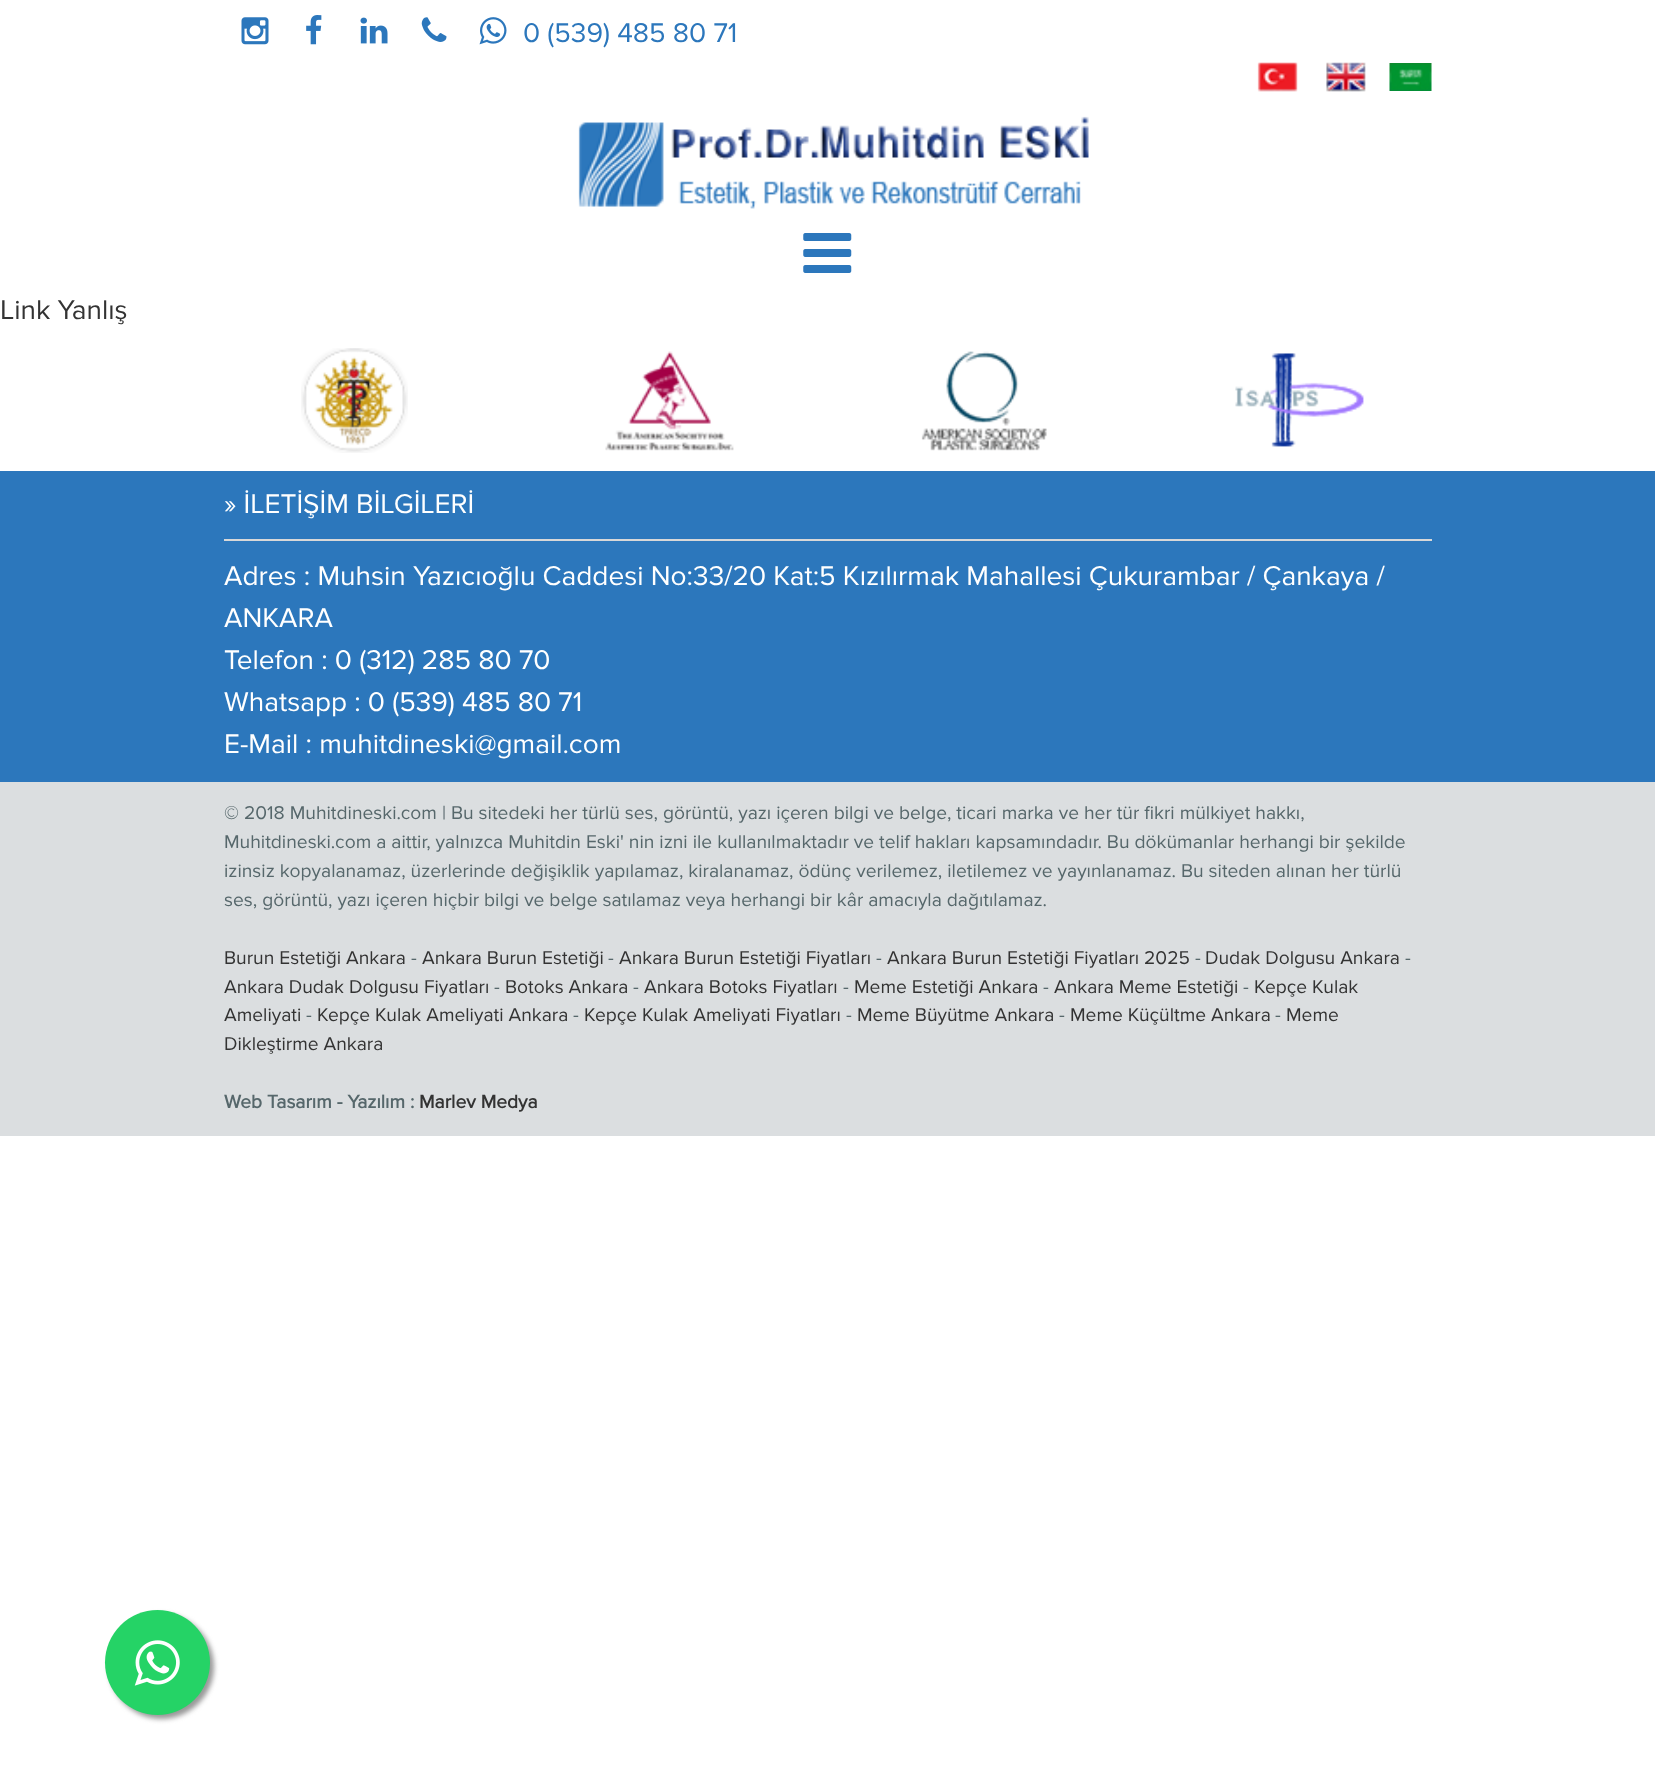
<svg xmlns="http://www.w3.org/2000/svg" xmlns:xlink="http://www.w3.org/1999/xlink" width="1655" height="1784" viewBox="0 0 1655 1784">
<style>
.cls-1{font:28px Proxima Nova;fill:#2c77bc}
.cls-2{font:28px Proxima Nova;fill:#333333}
.cls-3{font:28px Proxima Nova;fill:#ffffff}
.cls-4{font:19.25px Proxima Nova;fill:#56676b}
.cls-5{font:19.25px Proxima Nova;fill:#333333}
.cls-6{font:bold 19.25px Proxima Nova;fill:#56676b}
.cls-7{font:bold 19.25px Proxima Nova;fill:#333333}
</style>
<rect width="100%" height="100%" fill="#ffffff"/>
<image xlink:href="image0.png" x="241" y="17" width="28" height="28"/>
<image xlink:href="image1.png" x="306" y="15" width="16" height="30"/>
<image xlink:href="image2.png" x="360" y="17" width="28" height="27"/>
<image xlink:href="image3.png" x="421" y="17" width="26" height="25"/>
<image xlink:href="image4.png" x="479" y="17" width="28" height="28"/>
<image xlink:href="image5.png" x="1257" y="62" width="41" height="30"/>
<image xlink:href="image6.png" x="1326" y="62" width="40" height="30"/>
<image xlink:href="image7.png" x="1389" y="63" width="43" height="28"/>
<image xlink:href="image8.png" x="578" y="116" width="511" height="93"/>
<image xlink:href="image9.png" x="803" y="233" width="49" height="40"/>
<image xlink:href="image10.png" x="301" y="348" width="107" height="105"/>
<image xlink:href="image11.png" x="605" y="351" width="129" height="100"/>
<image xlink:href="image12.png" x="921" y="351" width="126" height="100"/>
<image xlink:href="image13.png" x="1235" y="353" width="129" height="94"/>
<rect fill="#2c77bc" x="0" y="471" width="1655" height="311"/>
<rect fill="#d8d8d8" x="224" y="539" width="1208" height="2"/>
<rect fill="#dbdee0" x="0" y="782" width="1655" height="354"/>
<rect fill="#999999" filter="blur(2.5px)" x="109" y="1614" width="105" height="105" rx="52.5"/>
<circle fill="#25d366" cx="157.5" cy="1662.5" r="52.5"/>
<image xlink:href="image14.png" x="134" y="1640" width="46" height="46"/>
<text class="cls-1" x="523" y="42">0 (539) 485 80 71</text>
<text class="cls-2" x="0" y="319">Link Yanlış</text>
<text class="cls-3" x="224" y="513">» İLETİŞİM BİLGİLERİ</text>
<text class="cls-3"><tspan x="224" y="585">Adres : Muhsin Yazıcıoğlu Caddesi No:33/20 Kat:5 Kızılırmak Mahallesi Çukurambar / Çankaya /</tspan><tspan x="224" y="627">ANKARA</tspan><tspan x="224" y="669">Telefon : 0 (312) 285 80 70</tspan><tspan x="224" y="711">Whatsapp : 0 (539) 485 80 71</tspan><tspan x="224" y="753">E-Mail : muhitdineski@gmail.com</tspan></text>
<text class="cls-4"><tspan x="224" y="819">© 2018 Muhitdineski.com | Bu sitedeki her türlü ses, görüntü, yazı içeren bilgi ve belge, ticari marka ve her tür fikri mülkiyet hakkı,</tspan><tspan x="224" y="848">Muhitdineski.com a aittir, yalnızca Muhitdin Eski' nin izni ile kullanılmaktadır ve telif hakları kapsamındadır. Bu dökümanlar herhangi bir şekilde</tspan><tspan x="224" y="877">izinsiz kopyalanamaz, üzerlerinde değişiklik yapılamaz, kiralanamaz, ödünç verilemez, iletilemez ve yayınlanamaz. Bu siteden alınan her türlü</tspan><tspan x="224" y="906">ses, görüntü, yazı içeren hiçbir bilgi ve belge satılamaz veya herhangi bir kâr amacıyla dağıtılamaz.</tspan></text>
<text class="cls-5" x="224" y="964">Burun Estetiği Ankara</text>
<text class="cls-4" x="411" y="964">-</text>
<text class="cls-5" x="422" y="964">Ankara Burun Estetiği</text>
<text class="cls-4" x="608" y="964">-</text>
<text class="cls-5" x="619" y="964">Ankara Burun Estetiği Fiyatları</text>
<text class="cls-4" x="876" y="964">-</text>
<text class="cls-5" x="887" y="964">Ankara Burun Estetiği Fiyatları 2025</text>
<text class="cls-4" x="1195" y="964">-</text>
<text class="cls-5" x="1205" y="964">Dudak Dolgusu Ankara</text>
<text class="cls-4" x="1405" y="964">-</text>
<text class="cls-5" x="224" y="993">Ankara Dudak Dolgusu Fiyatları</text>
<text class="cls-4" x="494" y="993">-</text>
<text class="cls-5" x="505" y="993">Botoks Ankara</text>
<text class="cls-4" x="633" y="993">-</text>
<text class="cls-5" x="644" y="993">Ankara Botoks Fiyatları</text>
<text class="cls-4" x="843" y="993">-</text>
<text class="cls-5" x="854" y="993">Meme Estetiği Ankara</text>
<text class="cls-4" x="1043" y="993">-</text>
<text class="cls-5" x="1054" y="993">Ankara Meme Estetiği</text>
<text class="cls-4" x="1243" y="993">-</text>
<text class="cls-5" x="1254" y="993">Kepçe Kulak</text>
<text class="cls-5" x="224" y="1021">Ameliyati</text>
<text class="cls-4" x="306" y="1021">-</text>
<text class="cls-5" x="317" y="1021">Kepçe Kulak Ameliyati Ankara</text>
<text class="cls-4" x="573" y="1021">-</text>
<text class="cls-5" x="584" y="1021">Kepçe Kulak Ameliyati Fiyatları</text>
<text class="cls-4" x="846" y="1021">-</text>
<text class="cls-5" x="857" y="1021">Meme Büyütme Ankara</text>
<text class="cls-4" x="1059" y="1021">-</text>
<text class="cls-5" x="1070" y="1021">Meme Küçültme Ankara</text>
<text class="cls-4" x="1275" y="1021">-</text>
<text class="cls-5" x="1286" y="1021">Meme</text>
<text class="cls-5" x="224" y="1050">Dikleştirme Ankara</text>
<text class="cls-6" x="224" y="1108">Web Tasarım - Yazılım :</text>
<text class="cls-7" x="419" y="1108">Marlev Medya</text>
</svg>
